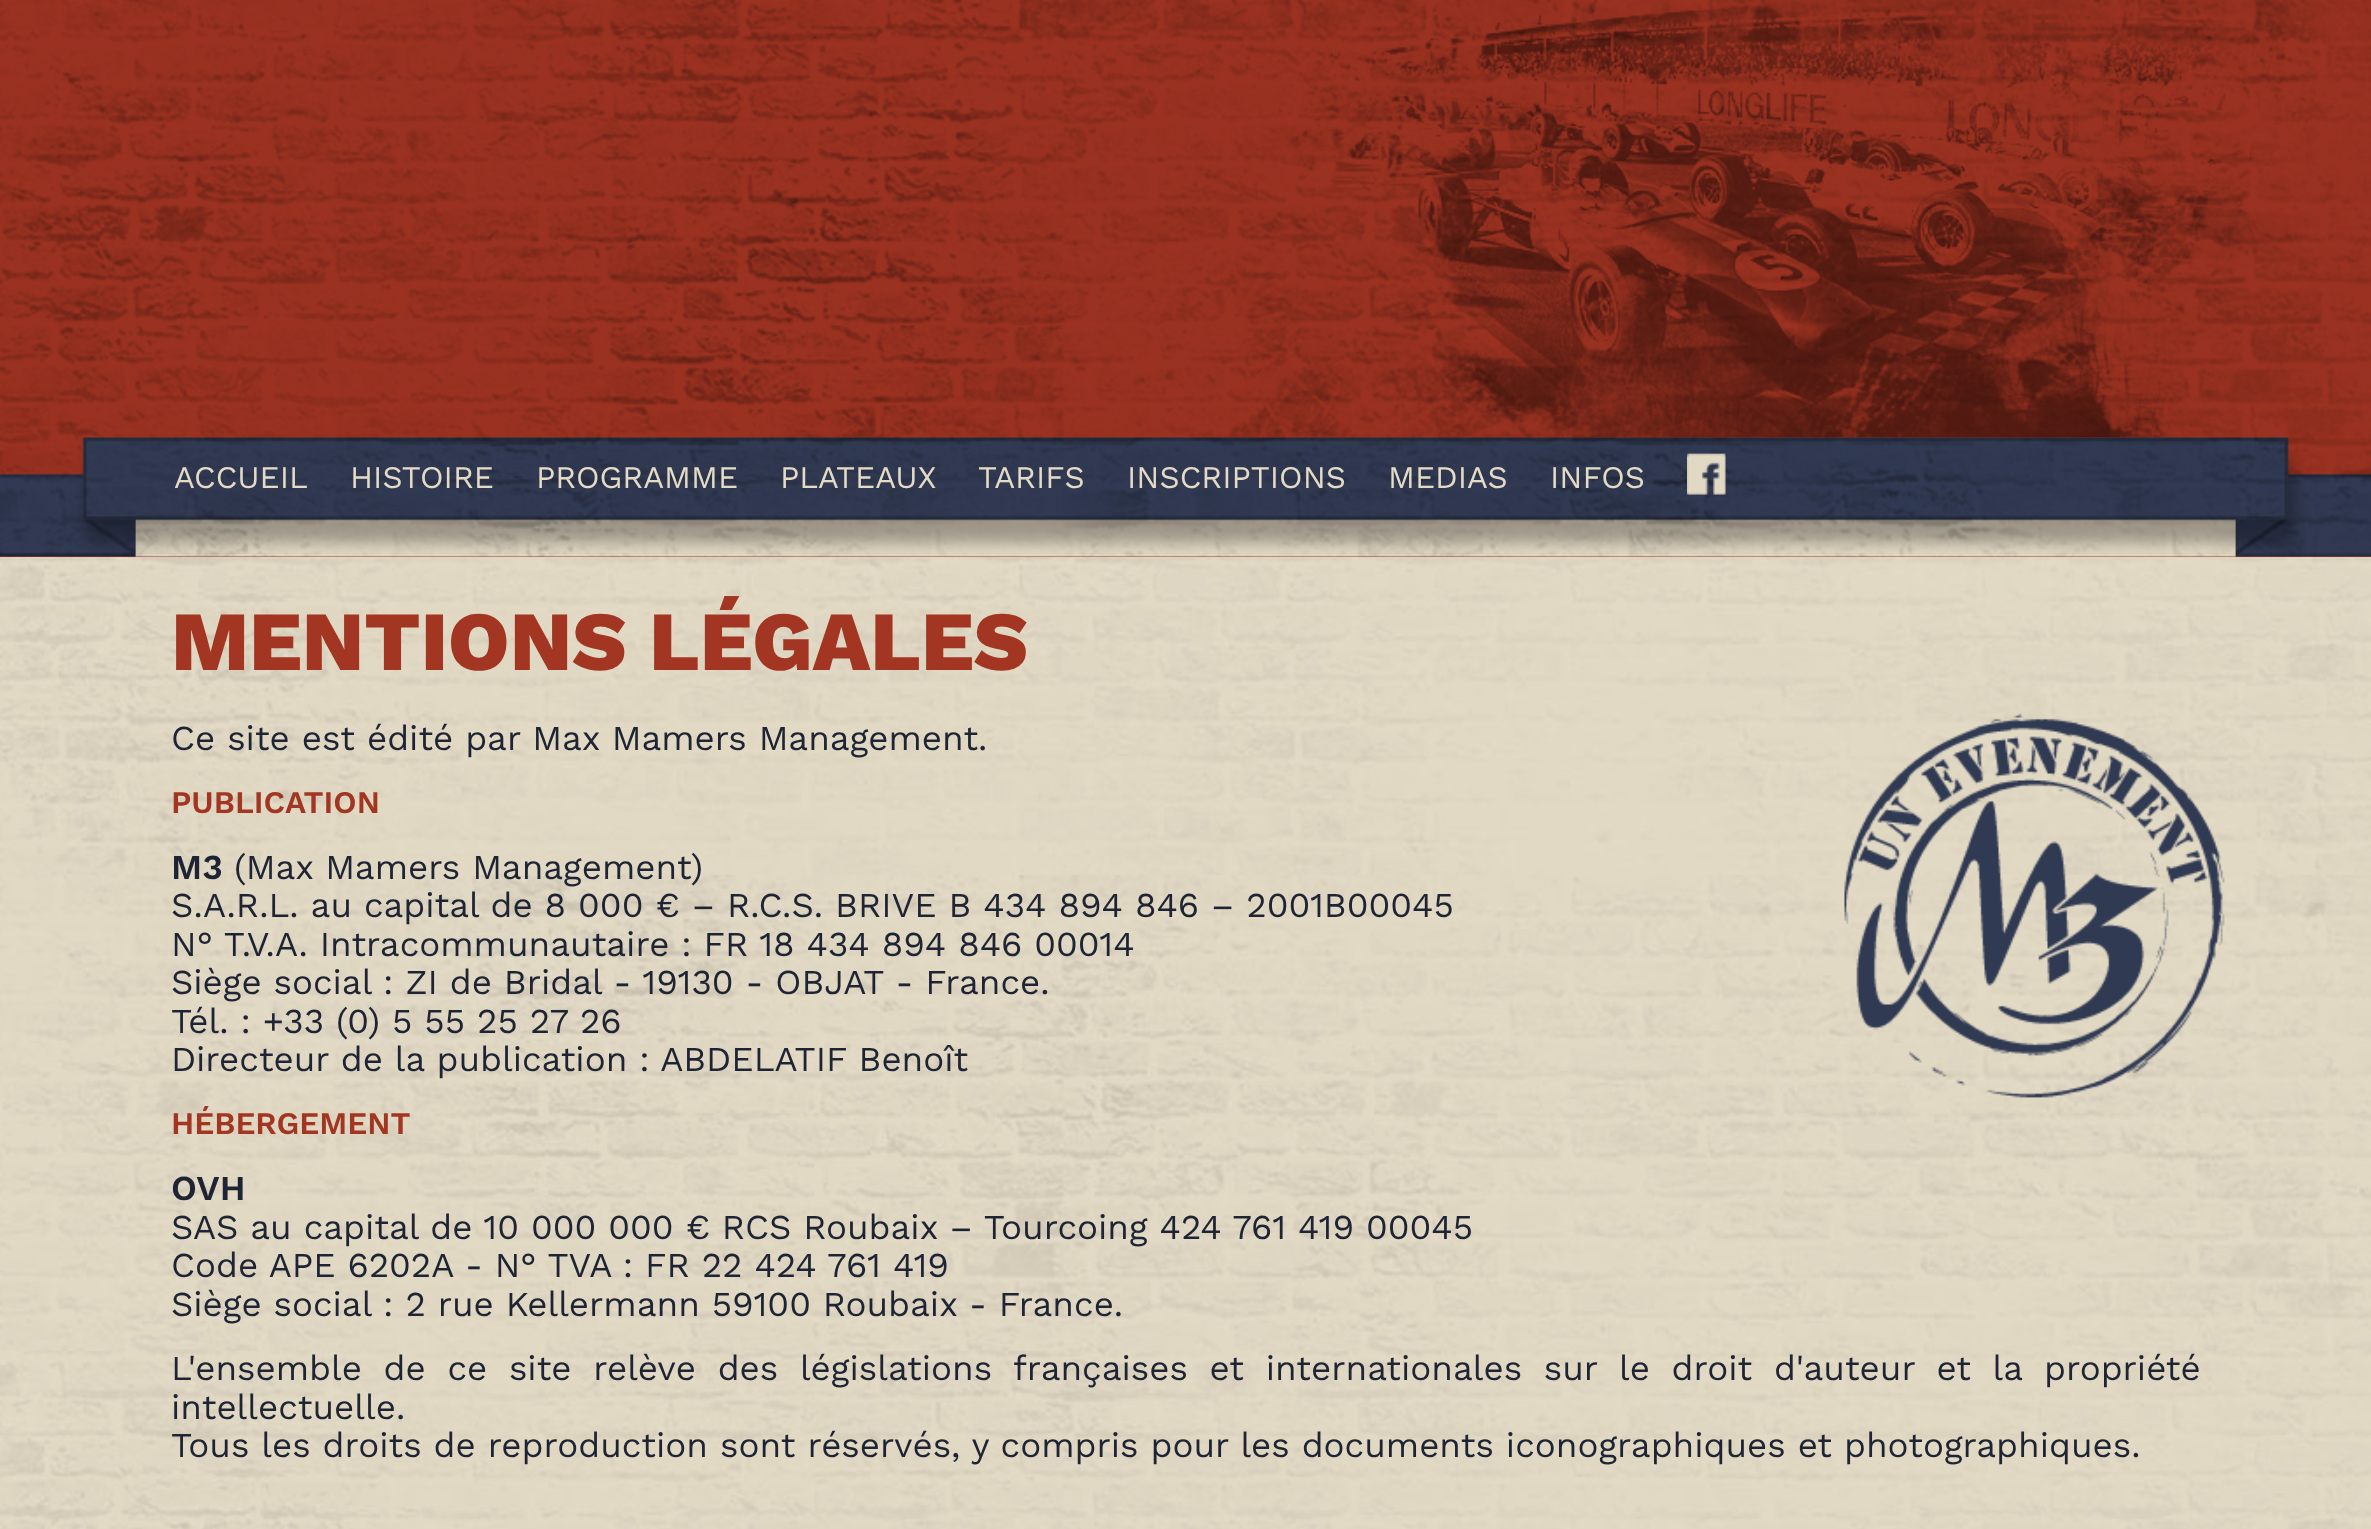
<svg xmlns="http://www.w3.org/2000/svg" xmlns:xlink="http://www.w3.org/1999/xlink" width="2371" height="1529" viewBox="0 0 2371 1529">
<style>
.cls-1{font:31.5px Work Sans;fill:#e4dbc6}
.cls-2{font:800 84px Work Sans;fill:#a33622}
.cls-3{font:35px Work Sans;fill:#1e2433}
.cls-4{font:600 31.5px Work Sans;fill:#a33622}
.cls-5{font:600 35px Work Sans;fill:#1e2433}
</style>
<rect width="100%" height="100%" fill="#ffffff"/>
<image xlink:href="image0.png" x="0" y="557" width="2371" height="972"/>
<rect fill="#a33622" x="0" y="437" width="2371" height="120"/>
<image xlink:href="image1.png" x="0" y="0" width="2371" height="438"/>
<image xlink:href="image2.png" x="0" y="437" width="2371" height="120"/>
<image xlink:href="image3.png" x="1687" y="453" width="39" height="42"/>
<image xlink:href="image4.png" x="1844" y="713" width="381" height="385"/>
<text class="cls-1" x="174" y="488">ACCUEIL</text>
<text class="cls-1" x="350" y="488">HISTOIRE</text>
<text class="cls-1" x="536" y="488">PROGRAMME</text>
<text class="cls-1" x="780" y="488">PLATEAUX</text>
<text class="cls-1" x="978" y="488">TARIFS</text>
<text class="cls-1" x="1127" y="488">INSCRIPTIONS</text>
<text class="cls-1" x="1388" y="488">MEDIAS</text>
<text class="cls-1" x="1550" y="488">INFOS</text>
<text class="cls-2" x="171" y="670">MENTIONS LÉGALES</text>
<text class="cls-3" x="171" y="750">Ce site est édité par Max Mamers Management.</text>
<text class="cls-4" x="171" y="813">PUBLICATION</text>
<text class="cls-5" x="171" y="879">M3</text>
<text class="cls-3" x="234" y="879">(Max Mamers Management)</text>
<text class="cls-3"><tspan x="171" y="917">S.A.R.L. au capital de 8 000 € – R.C.S. BRIVE B 434 894 846 – 2001B00045</tspan><tspan x="171" y="956">N° T.V.A. Intracommunautaire : FR 18 434 894 846 00014</tspan><tspan x="171" y="994">Siège social : ZI de Bridal - 19130 - OBJAT - France.</tspan><tspan x="171" y="1033">Tél. : +33 (0) 5 55 25 27 26</tspan><tspan x="171" y="1071">Directeur de la publication : ABDELATIF Benoît</tspan></text>
<text class="cls-4" x="171" y="1134">HÉBERGEMENT</text>
<text class="cls-5" x="171" y="1200">OVH</text>
<text class="cls-3"><tspan x="171" y="1239">SAS au capital de 10 000 000 € RCS Roubaix – Tourcoing 424 761 419 00045</tspan><tspan x="171" y="1277">Code APE 6202A - N° TVA : FR 22 424 761 419</tspan><tspan x="171" y="1316">Siège social : 2 rue Kellermann 59100 Roubaix - France.</tspan><tspan x="171" y="1380" word-spacing="9.75">L'ensemble de ce site relève des législations françaises et internationales sur le droit d'auteur et la propriété</tspan><tspan x="171" y="1419">intellectuelle.</tspan><tspan x="171" y="1457">Tous les droits de reproduction sont réservés, y compris pour les documents iconographiques et photographiques.</tspan></text>
</svg>
